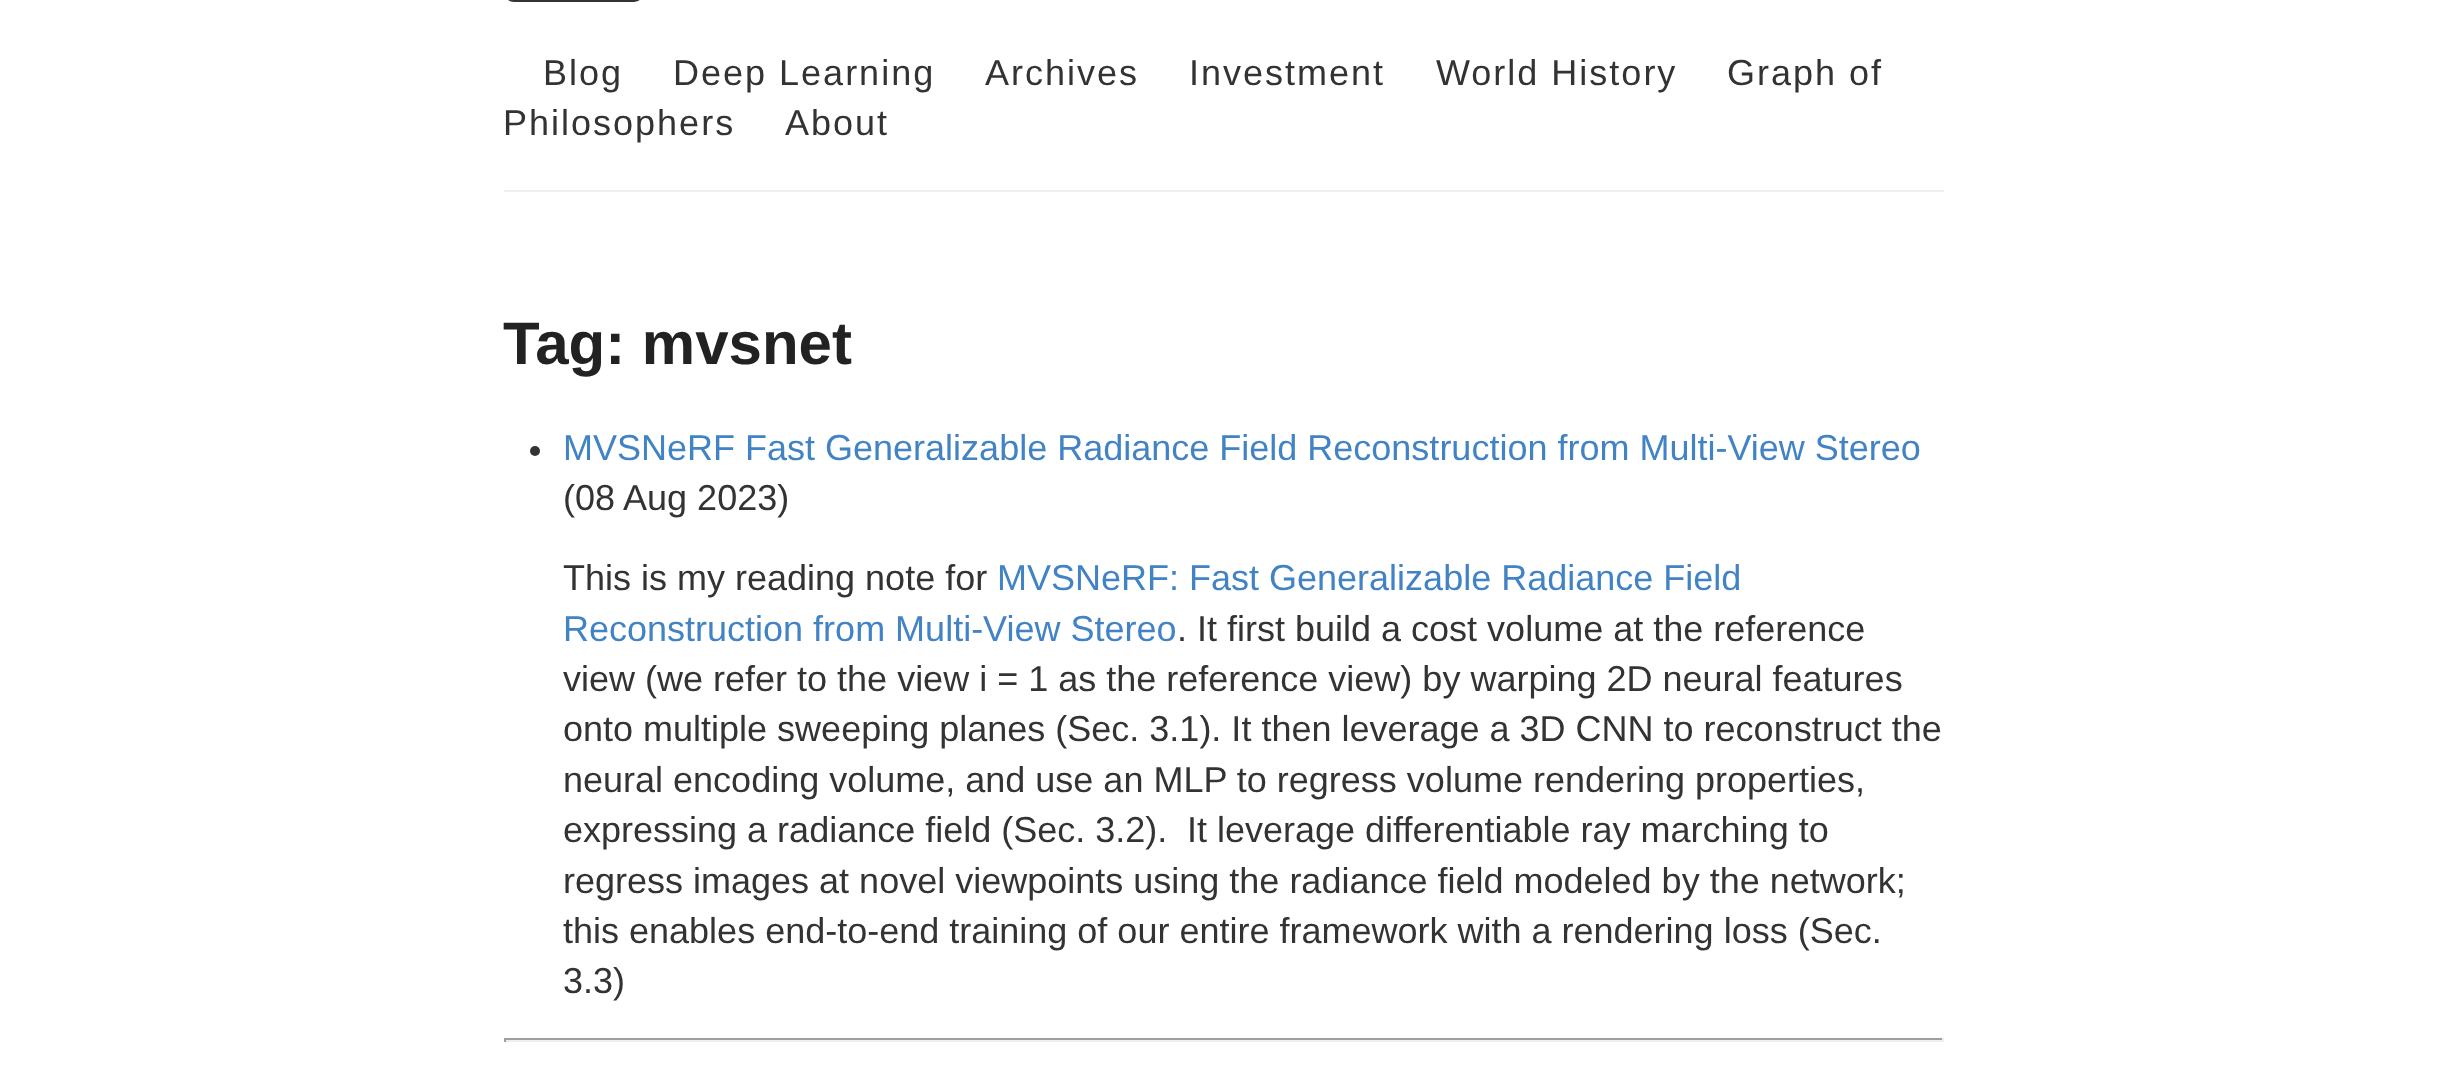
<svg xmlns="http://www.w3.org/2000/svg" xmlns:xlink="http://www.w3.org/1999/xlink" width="2445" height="1073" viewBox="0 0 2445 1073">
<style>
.cls-1{font:36px Liberation Sans;letter-spacing:2px;fill:#333333}
.cls-2{font:bold 60px Liberation Sans;fill:#222222}
.cls-3{font:36px Liberation Sans;fill:#4183c4}
.cls-4{font:36px Liberation Sans;fill:#333333}
</style>
<rect width="100%" height="100%" fill="#ffffff"/>
<rect fill="#eeeeee" x="504" y="190" width="1440" height="2"/>
<image xlink:href="image0.png" x="508" y="0" width="132" height="2"/>
<circle fill="#333333" cx="535" cy="451" r="5"/>
<rect fill="#9f9f9f" x="504" y="1038" width="1440" height="2"/>
<rect fill="#eeeeee" x="1942" y="1038" width="2" height="4"/>
<rect fill="#eeeeee" x="504" y="1040" width="1440" height="2"/>
<rect fill="#9f9f9f" x="504" y="1038" width="2" height="4"/>
<text class="cls-1" x="543" y="85">Blog</text>
<text class="cls-1" x="673" y="85">Deep Learning</text>
<text class="cls-1" x="985" y="85">Archives</text>
<text class="cls-1" x="1189" y="85">Investment</text>
<text class="cls-1" x="1436" y="85">World History</text>
<text class="cls-1" x="1727" y="85">Graph of</text>
<text class="cls-1" x="503" y="135">Philosophers</text>
<text class="cls-1" x="785" y="135">About</text>
<text class="cls-2" x="503" y="364">Tag: mvsnet</text>
<text class="cls-3" x="563" y="460">MVSNeRF Fast Generalizable Radiance Field Reconstruction from Multi-View Stereo</text>
<text class="cls-4" x="563" y="510">(08 Aug 2023)</text>
<text class="cls-4" x="563" y="590">This is my reading note for</text>
<text class="cls-3" x="997" y="590">MVSNeRF: Fast Generalizable Radiance Field</text>
<text class="cls-3" x="563" y="641">Reconstruction from Multi-View Stereo</text>
<text class="cls-4" x="1177" y="641">. It first build a cost volume at the reference</text>
<text class="cls-4"><tspan x="563" y="691">view (we refer to the view i = 1 as the reference view) by warping 2D neural features</tspan><tspan x="563" y="741">onto multiple sweeping planes (Sec. 3.1). It then leverage a 3D CNN to reconstruct the</tspan><tspan x="563" y="792">neural encoding volume, and use an MLP to regress volume rendering properties,</tspan><tspan x="563" y="842">expressing a radiance field (Sec. 3.2).</tspan></text>
<text class="cls-4" x="1187" y="842">It leverage differentiable ray marching to</text>
<text class="cls-4"><tspan x="563" y="893">regress images at novel viewpoints using the radiance field modeled by the network;</tspan><tspan x="563" y="943">this enables end-to-end training of our entire framework with a rendering loss (Sec.</tspan><tspan x="563" y="993">3.3)</tspan></text>
</svg>
